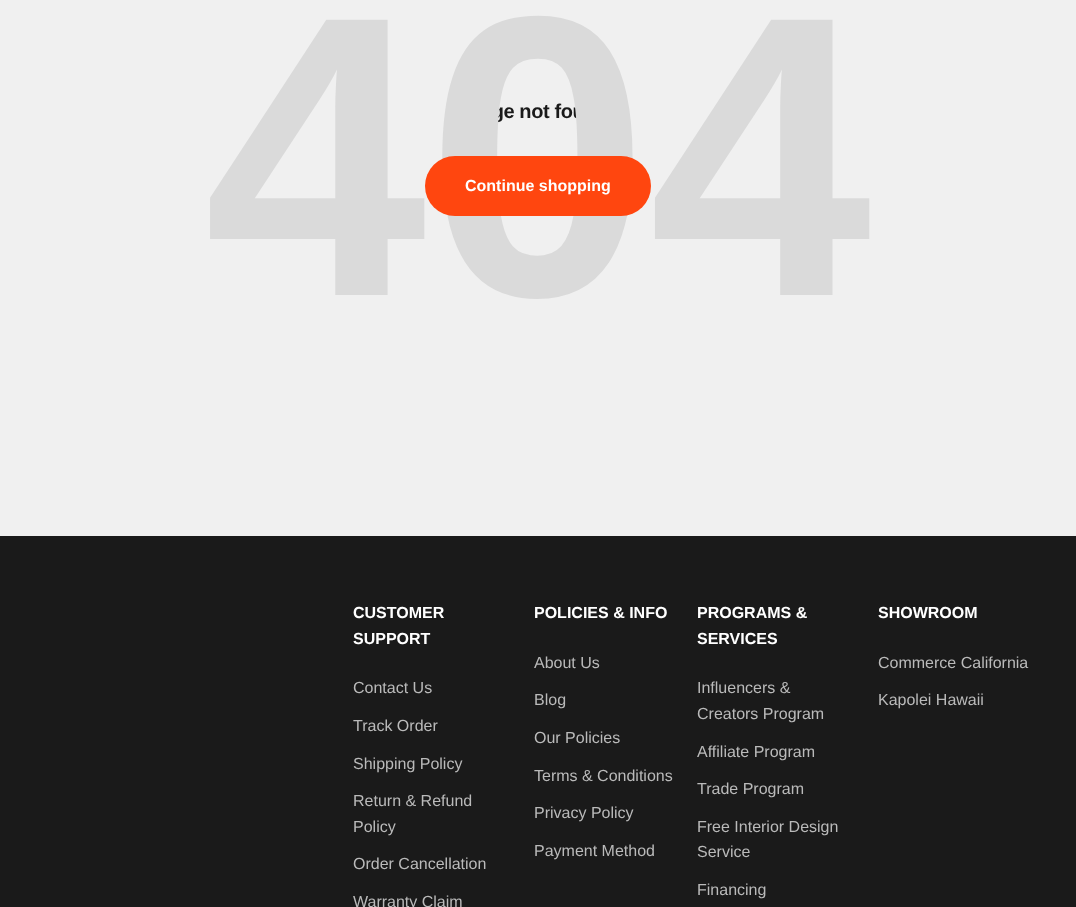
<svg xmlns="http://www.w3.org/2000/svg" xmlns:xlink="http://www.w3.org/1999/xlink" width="1076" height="907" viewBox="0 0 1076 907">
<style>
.cls-1{font:bold 20px Liberation Sans;letter-spacing:-0.4px;fill:#1a1a1a}
.cls-2{font:bold 400px Liberation Sans;fill:#dadada}
.cls-3{font:bold 16px Liberation Sans;fill:#ffffff}
.cls-4{font:16px Liberation Sans;fill:#bababa}
</style>
<rect width="100%" height="100%" fill="#f0f0f0"/>
<rect fill="#1a1a1a" x="0" y="536" width="1076" height="371"/>
<text class="cls-1" x="468" y="118">Page not found</text>
<text class="cls-2" x="204" y="295">404</text>
<rect fill="#ff460f" x="425" y="156" width="226" height="60" rx="30"/>
<text class="cls-3" x="465" y="191">Continue shopping</text>
<text class="cls-3"><tspan x="353" y="618">CUSTOMER</tspan><tspan x="353" y="644">SUPPORT</tspan></text>
<text class="cls-4" x="353" y="693">Contact Us</text>
<text class="cls-4" x="353" y="731">Track Order</text>
<text class="cls-4" x="353" y="769">Shipping Policy</text>
<text class="cls-4"><tspan x="353" y="806">Return &amp; Refund</tspan><tspan x="353" y="832">Policy</tspan></text>
<text class="cls-4" x="353" y="869">Order Cancellation</text>
<text class="cls-4" x="353" y="907">Warranty Claim</text>
<text class="cls-3" x="534" y="618">POLICIES &amp; INFO</text>
<text class="cls-4" x="534" y="668">About Us</text>
<text class="cls-4" x="534" y="705">Blog</text>
<text class="cls-4" x="534" y="743">Our Policies</text>
<text class="cls-4" x="534" y="781">Terms &amp; Conditions</text>
<text class="cls-4" x="534" y="818">Privacy Policy</text>
<text class="cls-4" x="534" y="856">Payment Method</text>
<text class="cls-3"><tspan x="697" y="618">PROGRAMS &amp;</tspan><tspan x="697" y="644">SERVICES</tspan></text>
<text class="cls-4"><tspan x="697" y="693">Influencers &amp;</tspan><tspan x="697" y="719">Creators Program</tspan></text>
<text class="cls-4" x="697" y="757">Affiliate Program</text>
<text class="cls-4" x="697" y="794">Trade Program</text>
<text class="cls-4"><tspan x="697" y="832">Free Interior Design</tspan><tspan x="697" y="857">Service</tspan></text>
<text class="cls-4" x="697" y="895">Financing</text>
<text class="cls-3" x="878" y="618">SHOWROOM</text>
<text class="cls-4" x="878" y="668">Commerce California</text>
<text class="cls-4" x="878" y="705">Kapolei Hawaii</text>
</svg>
